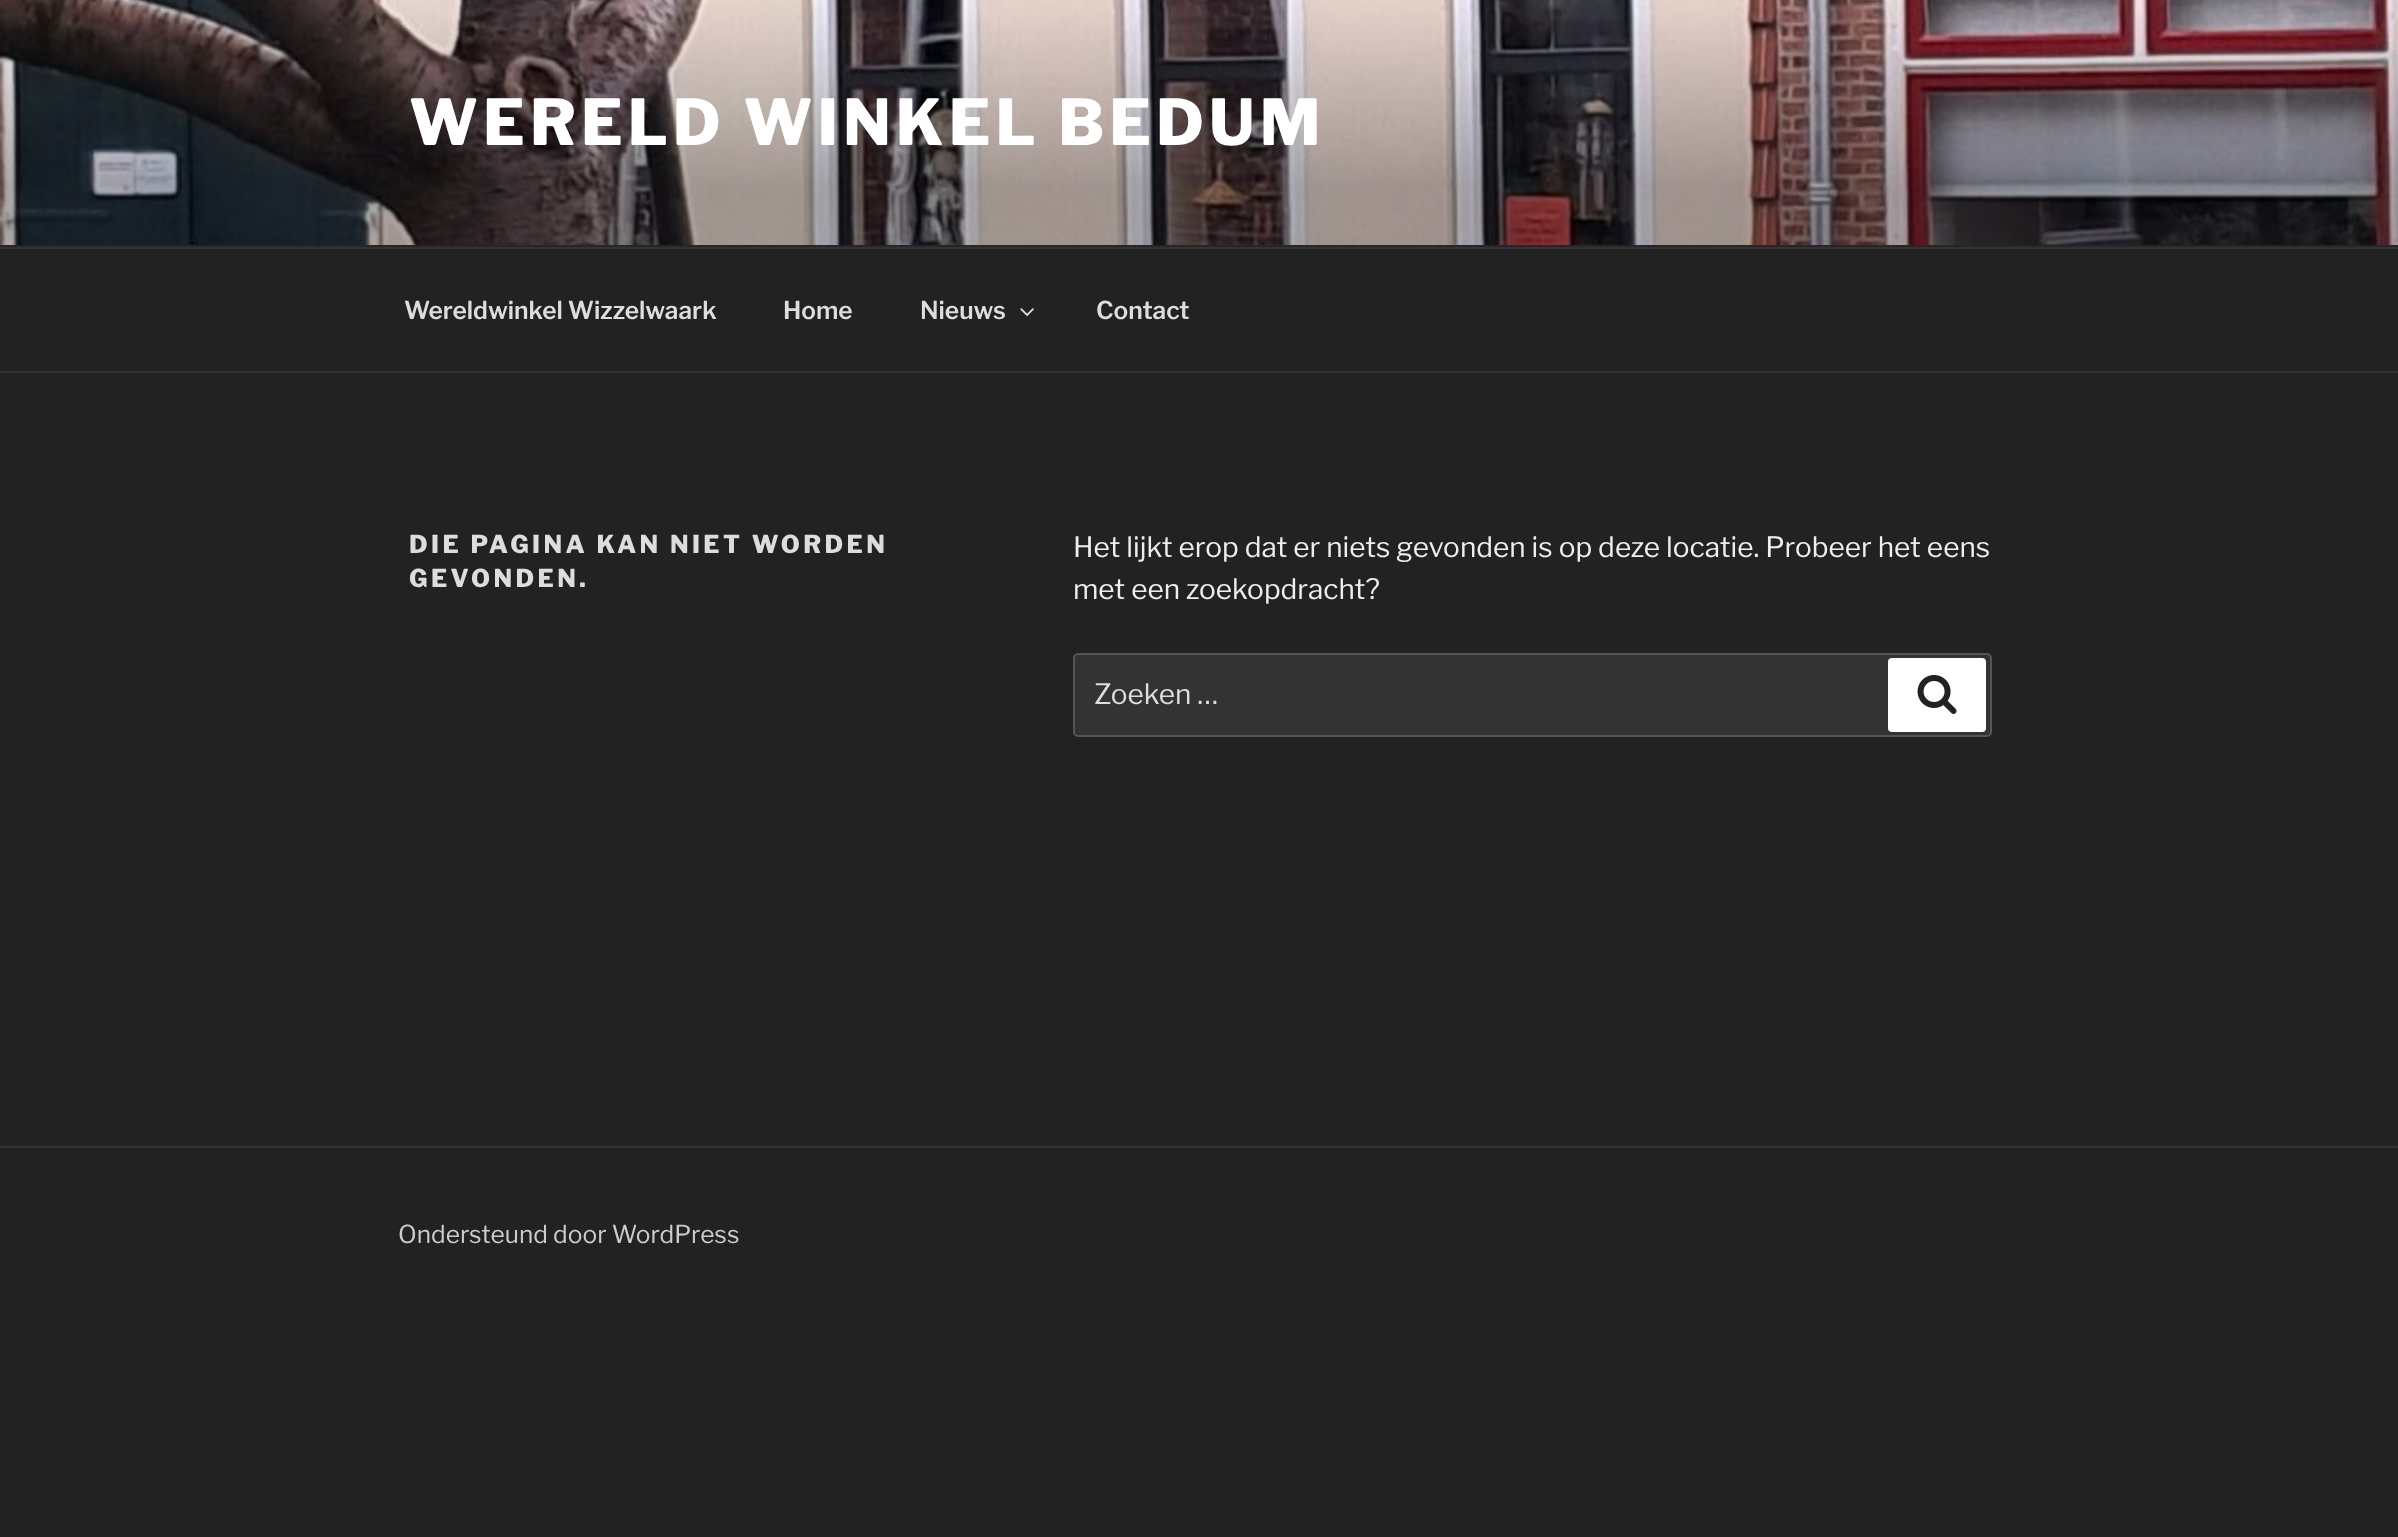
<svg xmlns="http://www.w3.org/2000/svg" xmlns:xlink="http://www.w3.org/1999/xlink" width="2398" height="1537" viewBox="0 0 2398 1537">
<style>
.cls-1{font:100 63px Libre Franklin;letter-spacing:5px;fill:#ffffff}
.cls-2{font:100 24.5px 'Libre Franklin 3';fill:#dddddd}
.cls-3{font:100 24.5px Libre Franklin;letter-spacing:3.4px;fill:#dddddd}
.cls-4{font:100 28px 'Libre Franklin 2';fill:#eeeeee}
.cls-5{font:100 28px 'Libre Franklin 2';fill:#dddddd}
.cls-6{font:100 24.5px 'Libre Franklin 2';fill:#cccccc}
</style>
<rect width="100%" height="100%" fill="#222222"/>
<rect fill="#262626" x="0" y="245" width="2398" height="2"/>
<image xlink:href="image0.png" x="0" y="0" width="2398" height="245"/>
<rect fill="#333333" x="0" y="247" width="2398" height="2"/>
<rect fill="#333333" x="0" y="371" width="2398" height="2"/>
<image xlink:href="image1.png" x="1020" y="308" width="14" height="9"/>
<rect fill="#333333" stroke="#555555" stroke-width="2" x="1074" y="654" width="917" height="82" rx="4"/>
<rect fill="#ffffff" x="1888" y="658" width="98" height="74" rx="4"/>
<image xlink:href="image2.png" x="1917" y="675" width="40" height="39"/>
<rect fill="#333333" x="0" y="1146" width="2398" height="2"/>
<text class="cls-1" x="409" y="145">WERELD WINKEL BEDUM</text>
<text class="cls-2" x="404" y="319">Wereldwinkel Wizzelwaark</text>
<text class="cls-2" x="783" y="319">Home</text>
<text class="cls-2" x="920" y="319">Nieuws</text>
<text class="cls-2" x="1096" y="319">Contact</text>
<text class="cls-3"><tspan x="409" y="553">DIE PAGINA KAN NIET WORDEN</tspan><tspan x="409" y="587">GEVONDEN.</tspan></text>
<text class="cls-4"><tspan x="1073" y="557">Het lijkt erop dat er niets gevonden is op deze locatie. Probeer het eens</tspan><tspan x="1073" y="599">met een zoekopdracht?</tspan></text>
<text class="cls-5" x="1094" y="704">Zoeken …</text>
<text class="cls-6" x="398" y="1243">Ondersteund door WordPress</text>
</svg>
